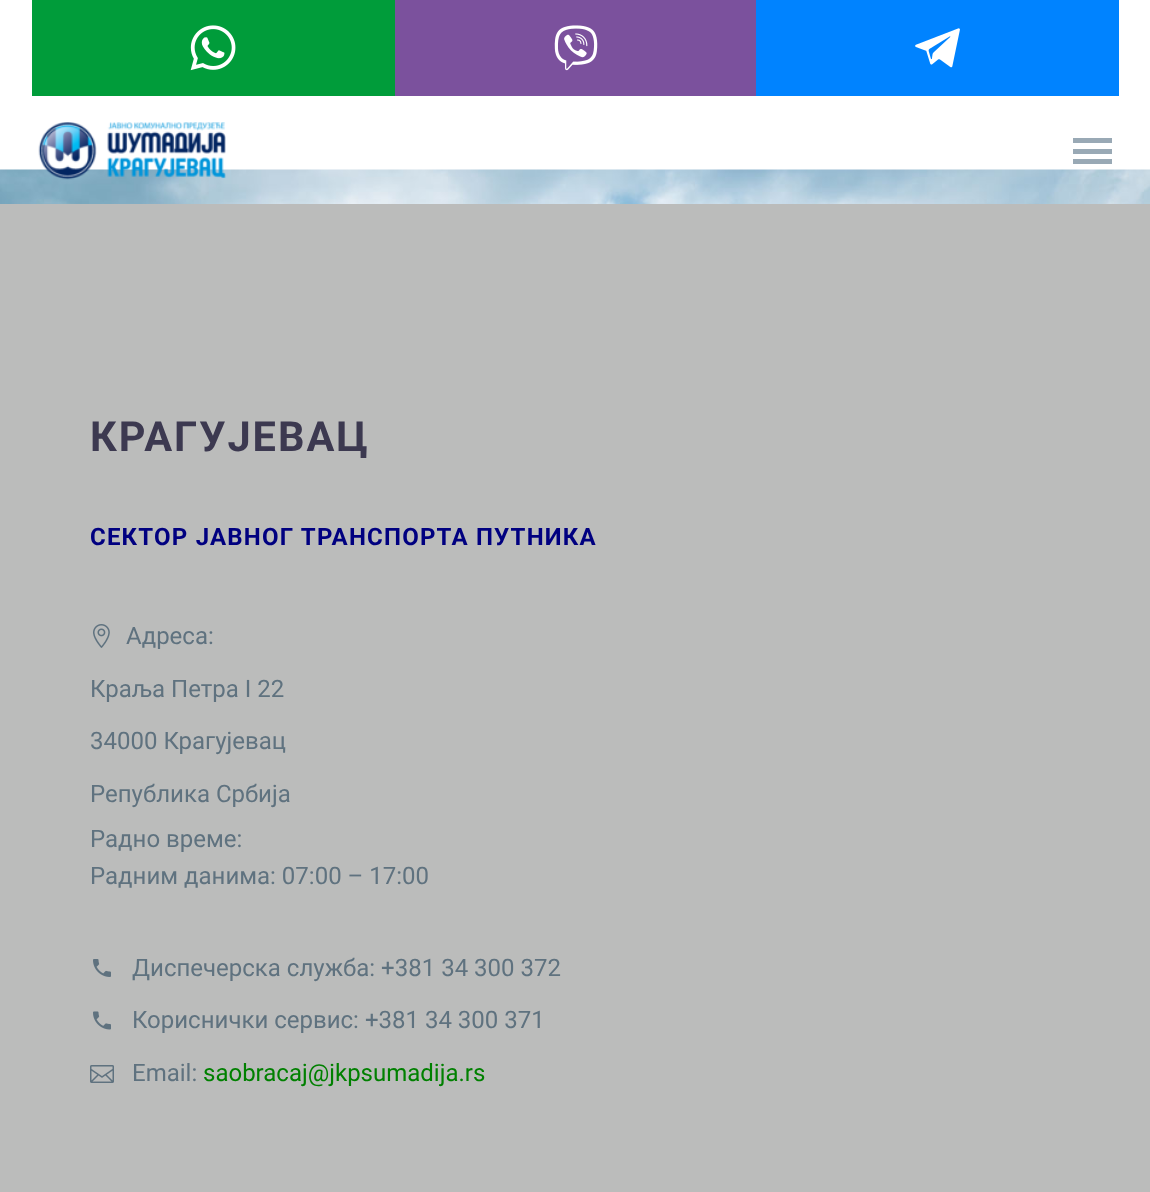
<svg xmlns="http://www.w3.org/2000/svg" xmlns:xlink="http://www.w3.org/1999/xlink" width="1150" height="1192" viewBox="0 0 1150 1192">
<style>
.cls-1{font:bold 41.5px Roboto;letter-spacing:2px;fill:#3c3950}
.cls-2{font:bold 24px Roboto;letter-spacing:1.2px;fill:#000080}
.cls-3{font:24px Roboto;fill:#5f727f}
.cls-4{font:24px Roboto;fill:#008000}
</style>
<rect width="100%" height="100%" fill="#ffffff"/>
<rect fill="#009c3a" x="32" y="0" width="363" height="96"/>
<image xlink:href="image0.png" x="190" y="25" width="46" height="46"/>
<rect fill="#7b519d" x="395" y="0" width="361" height="96"/>
<image xlink:href="image1.png" x="554" y="25" width="44" height="46"/>
<rect fill="#0083ff" x="756" y="0" width="363" height="96"/>
<image xlink:href="image2.png" x="915" y="28" width="45" height="40"/>
<image xlink:href="image4.png" x="0" y="169" width="1150" height="35"/>
<image xlink:href="image3.png" x="38" y="122" width="188" height="58"/>
<rect fill="#99a9b5" x="1073" y="138" width="39" height="5"/>
<rect fill="#99a9b5" x="1073" y="149" width="39" height="5"/>
<rect fill="#99a9b5" x="1073" y="159" width="39" height="5"/>
<rect fill="#bbbcbb" x="0" y="204" width="1150" height="988"/>
<image xlink:href="image5.png" x="93" y="624" width="17" height="24"/>
<image xlink:href="image6.png" x="93" y="959" width="18" height="18"/>
<image xlink:href="image7.png" x="93" y="1011" width="18" height="19"/>
<image xlink:href="image8.png" x="90" y="1065" width="24" height="18"/>
<text class="cls-1" x="90" y="451">КРАГУЈЕВАЦ</text>
<text class="cls-2" x="90" y="545">СЕКТОР ЈАВНОГ ТРАНСПОРТА ПУТНИКА</text>
<text class="cls-3" x="126" y="644">Aдреса:</text>
<text class="cls-3" x="90" y="697">Краља Петра I 22</text>
<text class="cls-3" x="90" y="749">34000 Крагујевац</text>
<text class="cls-3"><tspan x="90" y="802">Република Србија</tspan><tspan x="90" y="847">Радно време:</tspan><tspan x="90" y="884">Радним данима: 07:00 – 17:00</tspan></text>
<text class="cls-3" x="132" y="976">Диспечерска служба: +381 34 300 372</text>
<text class="cls-3" x="132" y="1028">Кориснички сервис: +381 34 300 371</text>
<text class="cls-3" x="132" y="1081">Email:</text>
<text class="cls-4" x="203" y="1081">saobracaj@jkpsumadija.rs</text>
</svg>
